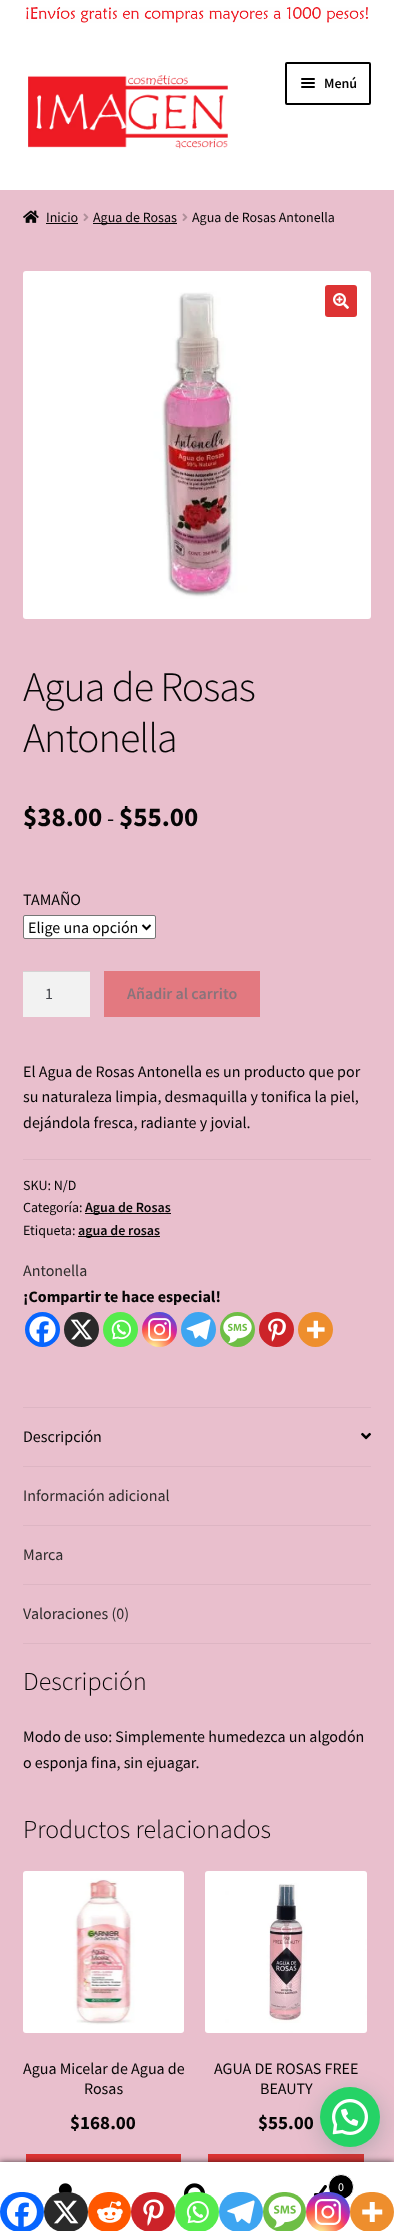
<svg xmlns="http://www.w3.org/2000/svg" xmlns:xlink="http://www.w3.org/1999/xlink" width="394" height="2231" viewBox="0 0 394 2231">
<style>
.cls-1{font:600 14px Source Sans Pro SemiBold;fill:#050505}
.cls-2{font:14px Source Sans Pro;fill:#050505}
.cls-3{font:300 42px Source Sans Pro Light;letter-spacing:-1px;fill:#050505}
.cls-4{font:bold 27px Source Sans Pro;fill:#050505}
.cls-5{font:23px Source Sans Pro;fill:#050505}
.cls-6{font:16px Source Sans Pro;fill:#050505}
.cls-7{font:16px Source Sans Pro;fill:#43454b}
.cls-8{font:600 16px Source Sans Pro SemiBold;fill:#89747b}
.cls-9{font:16px Source Sans Pro;fill:#2e2c2c}
.cls-10{font:bold 16px Source Sans Pro;fill:#050505}
.cls-11{font:300 25.9px Source Sans Pro Light;fill:#050505}
.cls-12{font:bold 19px Source Sans Pro;fill:#050505}
.cls-13{font:12px Source Sans Pro;fill:#ffffff}
</style>
<defs>
<radialGradient id="g1" gradientUnits="userSpaceOnUse" cx="153" cy="1349" r="45"><stop offset="0" stop-color="#fdf497"/><stop offset="0.05" stop-color="#fdf497"/><stop offset="0.45" stop-color="#fd5949"/><stop offset="0.6" stop-color="#d6249f"/><stop offset="0.9" stop-color="#285aeb"/></radialGradient>
<radialGradient id="g2" gradientUnits="userSpaceOnUse" cx="319" cy="2235" r="53"><stop offset="0" stop-color="#fdf497"/><stop offset="0.05" stop-color="#fdf497"/><stop offset="0.45" stop-color="#fd5949"/><stop offset="0.6" stop-color="#d6249f"/><stop offset="0.9" stop-color="#285aeb"/></radialGradient>
</defs>
<rect width="100%" height="100%" fill="#e9bfcd"/>
<rect fill="#ffffff" x="0" y="0" width="394" height="190"/>
<image xlink:href="image0.png" x="26" y="7" width="343" height="16"/>
<image xlink:href="image1.png" x="28" y="75" width="200" height="74"/>
<rect fill="none" stroke="#000000" stroke-width="2" x="286" y="63" width="84" height="41" rx="1"/>
<rect fill="#000000" x="301" y="78" width="14" height="2" rx="1"/>
<rect fill="#000000" x="301" y="82" width="14" height="2" rx="1"/>
<rect fill="#000000" x="301" y="86" width="14" height="2" rx="1"/>
<image xlink:href="image2.png" x="23" y="210" width="16" height="13"/>
<rect fill="#050505" x="46" y="223" width="32" height="1"/>
<image xlink:href="image3.png" x="83" y="213" width="6" height="8"/>
<rect fill="#050505" x="93" y="223" width="84" height="1"/>
<image xlink:href="image3.png" x="182" y="213" width="6" height="8"/>
<image xlink:href="image4.png" x="23" y="271" width="348" height="348"/>
<rect fill="#dd3333" x="325" y="285" width="32" height="32" rx="3"/>
<image xlink:href="image5.png" x="333" y="293" width="16" height="16"/>
<rect fill="#ffffff" stroke="#767676" x="23.5" y="915.5" width="132" height="23" rx="1.5"/>
<path fill="none" stroke="#000000" stroke-width="2" d="M142.5 925L146.5 929L150.5 925"/>
<rect fill="#f2f2f2" x="23" y="972" width="67" height="45"/>
<rect fill="#d4d4d4" x="23" y="971" width="67" height="1"/>
<rect fill="#e37980" x="104" y="971" width="156" height="46"/>
<rect fill="#ddb5c3" x="23" y="1159" width="348" height="1"/>
<rect fill="#050505" x="85" y="1213" width="86" height="1"/>
<rect fill="#050505" x="78" y="1236" width="82" height="1"/>
<circle fill="#0765fe" cx="42.5" cy="1329.5" r="17.5"/>
<image xlink:href="image6.png" x="29" y="1316" width="27" height="27"/>
<circle fill="#2a2a2a" cx="81.5" cy="1329.5" r="17.5"/>
<image xlink:href="image7.png" x="70" y="1319" width="23" height="21"/>
<circle fill="#55eb4c" cx="120.5" cy="1329.5" r="17.5"/>
<image xlink:href="image8.png" x="111" y="1319" width="20" height="21"/>
<circle fill="url(#g1)" cx="159.5" cy="1329.5" r="17.5"/>
<image xlink:href="image9.png" x="148" y="1318" width="23" height="23"/>
<circle fill="#3da5f1" cx="198.5" cy="1329.5" r="17.5"/>
<image xlink:href="image10.png" x="186" y="1319" width="25" height="21"/>
<circle fill="#6ebe45" cx="237.5" cy="1329.5" r="17.5"/>
<image xlink:href="image11.png" x="223" y="1315" width="29" height="29"/>
<circle fill="#cc2329" cx="276.5" cy="1329.5" r="17.5"/>
<image xlink:href="image12.png" x="268" y="1318" width="18" height="24"/>
<circle fill="#ee8e2d" cx="315.5" cy="1329.5" r="17.5"/>
<image xlink:href="image13.png" x="307" y="1320" width="18" height="19"/>
<rect fill="#ddb5c3" x="23" y="1407" width="348" height="1"/>
<rect fill="#ddb5c3" x="23" y="1466" width="348" height="1"/>
<image xlink:href="image14.png" x="361" y="1432" width="10" height="8"/>
<rect fill="#ddb5c3" x="23" y="1525" width="348" height="1"/>
<rect fill="#ddb5c3" x="23" y="1584" width="348" height="1"/>
<rect fill="#ddb5c3" x="23" y="1643" width="348" height="1"/>
<rect fill="#dd3333" x="26" y="2154" width="155" height="8"/>
<rect fill="#dd3333" x="208" y="2154" width="156" height="8"/>
<rect fill="#000000" fill-opacity="0.7" filter="blur(3px)" x="0" y="2162" width="394" height="69"/>
<rect fill="#075e54" fill-opacity="0.24" filter="blur(12px)" x="321" y="2093" width="60" height="60" rx="30"/>
<rect fill="#ffffff" x="0" y="2163" width="394" height="68"/>
<rect fill="#0765fe" x="0" y="2192" width="44" height="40" rx="20"/>
<image xlink:href="image15.png" x="6" y="2197" width="31" height="30"/>
<image xlink:href="image26.png" x="58" y="2183" width="14" height="10"/>
<rect fill="#2a2a2a" x="44" y="2192" width="44" height="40" rx="20"/>
<image xlink:href="image16.png" x="53" y="2200" width="26" height="24"/>
<rect fill="#ff5700" x="88" y="2192" width="43" height="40" rx="20"/>
<image xlink:href="image17.png" x="97" y="2201" width="26" height="22"/>
<rect fill="#cc2329" x="131" y="2192" width="44" height="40" rx="20"/>
<image xlink:href="image18.png" x="143" y="2199" width="21" height="27"/>
<image xlink:href="image27.png" x="184" y="2183" width="21" height="13"/>
<rect fill="#55eb4c" x="175" y="2192" width="44" height="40" rx="20"/>
<image xlink:href="image19.png" x="186" y="2201" width="23" height="23"/>
<rect fill="#3da5f1" x="219" y="2192" width="44" height="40" rx="20"/>
<image xlink:href="image20.png" x="227" y="2200" width="28" height="24"/>
<rect fill="#6ebe45" x="263" y="2192" width="43" height="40" rx="20"/>
<image xlink:href="image21.png" x="268" y="2196" width="34" height="32"/>
<image xlink:href="image28.png" x="314" y="2185" width="13" height="11"/>
<circle fill="#000000" stroke="#ffffff" cx="341" cy="2187" r="12.5"/>
<rect fill="url(#g2)" x="306" y="2192" width="44" height="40" rx="20"/>
<image xlink:href="image22.png" x="314" y="2199" width="27" height="26"/>
<rect fill="#ee8e2d" x="350" y="2192" width="44" height="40" rx="20"/>
<image xlink:href="image23.png" x="362" y="2202" width="21" height="20"/>
<image xlink:href="image24.png" x="23" y="1871" width="161" height="162"/>
<image xlink:href="image25.png" x="205" y="1871" width="162" height="162"/>
<rect fill="#ffffff" x="0" y="2162" width="394" height="1"/>
<circle fill="#25d366" cx="350" cy="2117" r="30"/>
<image xlink:href="image29.png" x="332" y="2099" width="36" height="36"/>
<text class="cls-1" x="324" y="88">Menú</text>
<text class="cls-2" x="46" y="222">Inicio</text>
<text class="cls-2" x="93" y="222">Agua de Rosas</text>
<text class="cls-2" x="192" y="222">Agua de Rosas Antonella</text>
<text class="cls-3"><tspan x="23" y="701">Agua de Rosas</tspan><tspan x="23" y="752">Antonella</tspan></text>
<text class="cls-4" x="23" y="826">$38.00</text>
<text class="cls-5" x="107" y="826">-</text>
<text class="cls-4" x="119" y="826">$55.00</text>
<text class="cls-6" x="23" y="905">TAMAÑO</text>
<text class="cls-6" x="28" y="933">Elige una opción</text>
<text class="cls-7" x="45" y="999">1</text>
<text class="cls-8" x="127" y="999">Añadir al carrito</text>
<text class="cls-6"><tspan x="23" y="1077">El Agua de Rosas Antonella es un producto que por</tspan><tspan x="23" y="1102">su naturaleza limpia, desmaquilla y tonifica la piel,</tspan><tspan x="23" y="1128">dejándola fresca, radiante y jovial.</tspan></text>
<text class="cls-2"><tspan x="23" y="1190">SKU: N/D</tspan><tspan x="23" y="1212">Categoría:</tspan></text>
<text class="cls-1" x="85" y="1212">Agua de Rosas</text>
<text class="cls-2" x="23" y="1235">Etiqueta:</text>
<text class="cls-1" x="78" y="1235">agua de rosas</text>
<text class="cls-9" x="23" y="1276">Antonella</text>
<text class="cls-10" x="23" y="1302">¡Compartir te hace especial!</text>
<text class="cls-6" x="23" y="1442">Descripción</text>
<text class="cls-9" x="23" y="1501">Información adicional</text>
<text class="cls-9" x="23" y="1560">Marca</text>
<text class="cls-9" x="23" y="1619">Valoraciones (0)</text>
<text class="cls-11" x="23" y="1690">Descripción</text>
<text class="cls-6"><tspan x="23" y="1742">Modo de uso: Simplemente humedezca un algodón</tspan><tspan x="23" y="1768">o esponja fina, sin ejuagar.</tspan></text>
<text class="cls-11" x="23" y="1838">Productos relacionados</text>
<text class="cls-6" x="23" y="2074">Agua Micelar de Agua de</text>
<text class="cls-6" x="84" y="2094">Rosas</text>
<text class="cls-12" x="70" y="2129">$168.00</text>
<text class="cls-6" x="214" y="2074">AGUA DE ROSAS FREE</text>
<text class="cls-6" x="260" y="2094">BEAUTY</text>
<text class="cls-12" x="258" y="2129">$55.00</text>
<text class="cls-13" x="338" y="2191">0</text>
</svg>
